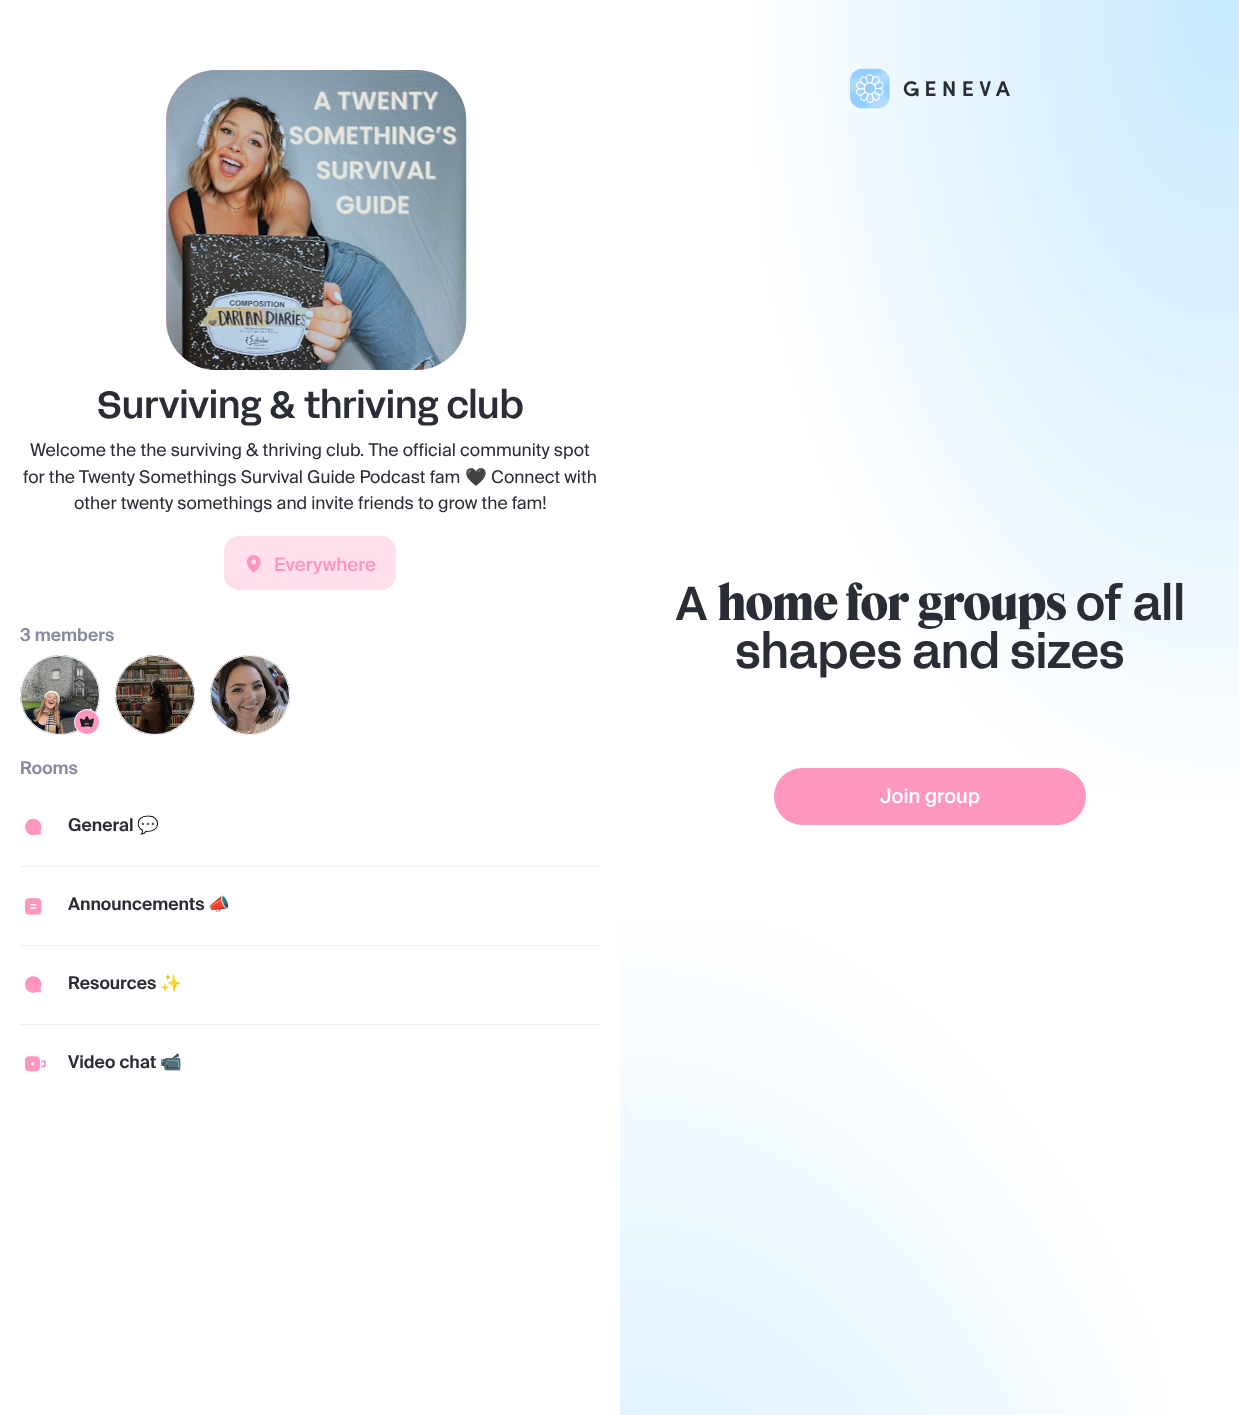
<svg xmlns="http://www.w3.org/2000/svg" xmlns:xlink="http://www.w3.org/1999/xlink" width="1239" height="1415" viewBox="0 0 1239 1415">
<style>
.cls-1{font:500 37.5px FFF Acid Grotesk;fill:#2a2d35}
.cls-2{font:17.5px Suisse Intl;fill:#2a2d35}
.cls-3{font:17.5px Noto Color Emoji;fill:#2a2d35}
.cls-4{font:500 18.75px Suisse Intl;fill:#ff96c0}
.cls-5{font:600 17.5px Suisse Intl;fill:#888aa0}
.cls-6{font:600 17.5px Suisse Intl;fill:#2a2d35}
.cls-7{font:bold 17.5px Noto Color Emoji;fill:#2a2d35}
.cls-8{font:500 47.5px FFF Acid Grotesk;fill:#2a2d35}
.cls-9{font:800 47.5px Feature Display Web;fill:#2a2d35}
.cls-10{font:500 20px Suisse Intl;fill:#ffffff}
</style>
<defs>
<radialGradient id="g1" gradientUnits="userSpaceOnUse" cx="0" cy="0" r="1" gradientTransform="matrix(484 0 0 824 1221 7.9)"><stop offset="0" stop-color="#c8e9ff"/><stop offset="1" stop-color="#ffffff"/></radialGradient>
<radialGradient id="g2" gradientUnits="userSpaceOnUse" cx="0" cy="0" r="1" gradientTransform="matrix(655 0 0 1035 620 1922)"><stop offset="0" stop-color="#c8e9ff"/><stop offset="1" stop-color="#c8e9ff" stop-opacity="0"/></radialGradient>
</defs>
<rect width="100%" height="100%" fill="#ffffff"/>
<rect fill="#ff96c0" x="166" y="70" width="300" height="300" rx="50"/>
<image xlink:href="image0.png" x="166" y="70" width="301" height="300"/>
<rect fill="#ffdfec" x="224" y="536" width="172" height="54" rx="15"/>
<image xlink:href="image1.png" x="246" y="555" width="15" height="18"/>
<image xlink:href="image2.png" x="20" y="655" width="80" height="80"/>
<circle fill="none" stroke="#ffffff" cx="60" cy="695" r="39.5"/>
<circle fill="#ff96c0" stroke="#ffffff" cx="87" cy="722" r="12.5"/>
<image xlink:href="image3.png" x="79" y="716" width="15" height="11"/>
<image xlink:href="image4.png" x="115" y="655" width="80" height="80"/>
<circle fill="none" stroke="#ffffff" cx="155" cy="695" r="39.5"/>
<image xlink:href="image5.png" x="210" y="655" width="80" height="80"/>
<circle fill="none" stroke="#ffffff" cx="250" cy="695" r="39.5"/>
<rect fill="#eeeff5" x="20" y="866" width="580" height="1"/>
<image xlink:href="image6.png" x="25" y="818" width="17" height="18"/>
<rect fill="#eeeff5" x="20" y="945" width="580" height="1"/>
<image xlink:href="image7.png" x="25" y="898" width="17" height="17"/>
<rect fill="#eeeff5" x="20" y="1024" width="580" height="1"/>
<image xlink:href="image8.png" x="25" y="976" width="17" height="17"/>
<image xlink:href="image9.png" x="25" y="1056" width="21" height="16"/>
<rect fill="url(#g1)" x="758" y="0" width="481" height="794"/>
<image xlink:href="image10.png" x="850" y="68" width="40" height="41"/>
<image xlink:href="image11.png" x="903" y="81" width="107" height="16"/>
<rect fill="#ff96c0" x="774" y="768" width="312" height="57" rx="28.5"/>
<rect fill="url(#g2)" x="620" y="924" width="542" height="491"/>
<text class="cls-1" x="97" y="418">Surviving &amp; thriving club</text>
<text class="cls-2" x="30" y="456">Welcome the the surviving &amp; thriving club. The official community spot</text>
<text class="cls-2" x="23" y="483">for the Twenty Somethings Survival Guide Podcast fam</text>
<text class="cls-3" x="465" y="483">🖤</text>
<text class="cls-2" x="491" y="483">Connect with</text>
<text class="cls-2" x="74" y="509">other twenty somethings and invite friends to grow the fam!</text>
<text class="cls-4" x="274" y="571">Everywhere</text>
<text class="cls-5" x="20" y="641">3 members</text>
<text class="cls-5" x="20" y="774">Rooms</text>
<text class="cls-6" x="68" y="831">General</text>
<text class="cls-7" x="137" y="831">💬</text>
<text class="cls-6" x="68" y="910">Announcements</text>
<text class="cls-7" x="208" y="910">📣</text>
<text class="cls-6" x="68" y="989">Resources</text>
<text class="cls-7" x="160" y="989">✨</text>
<text class="cls-6" x="68" y="1068">Video chat</text>
<text class="cls-7" x="160" y="1068">📹</text>
<text class="cls-8" x="675" y="620">A</text>
<text class="cls-9" x="718" y="620">home for groups</text>
<text class="cls-8" x="1076" y="620">of all</text>
<text class="cls-8" x="735" y="668">shapes and sizes</text>
<text class="cls-10" x="880" y="803">Join group</text>
</svg>
